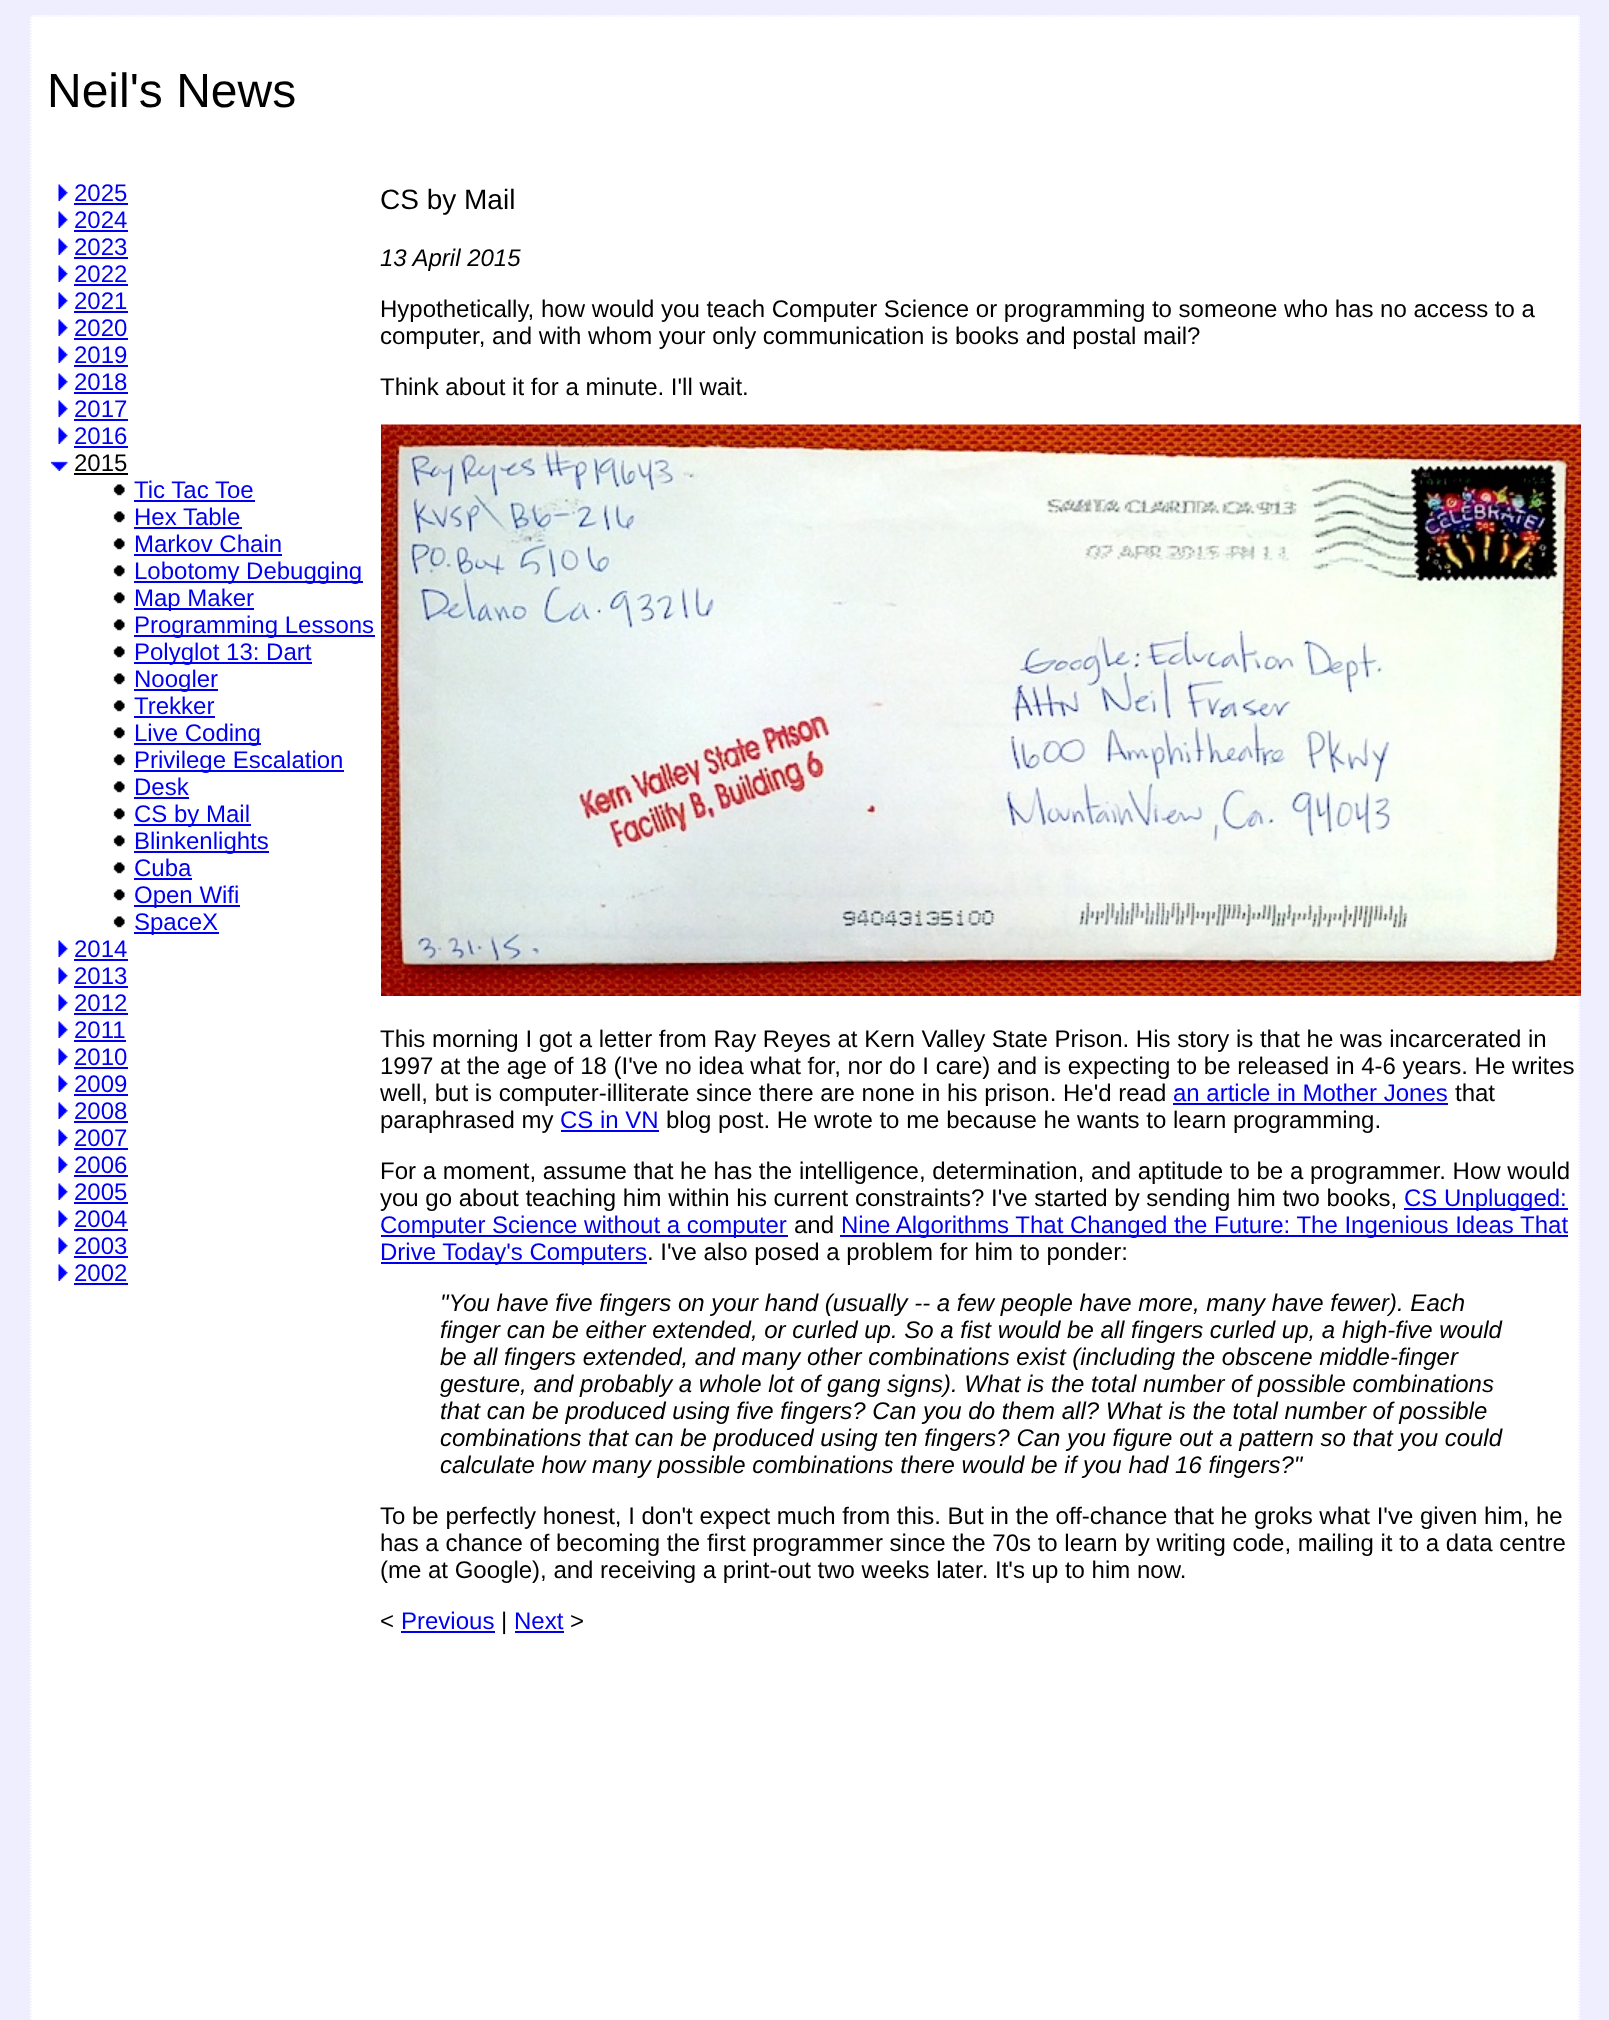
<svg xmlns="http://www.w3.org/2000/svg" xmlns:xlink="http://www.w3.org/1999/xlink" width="1609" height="2020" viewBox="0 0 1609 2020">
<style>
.cls-1{font:48px Liberation Sans;fill:#000000}
.cls-2{font:24px Liberation Sans;fill:#0000ee}
.cls-3{font:24px Liberation Sans;fill:#000000}
.cls-4{font:28px Liberation Sans;fill:#000000}
.cls-5{font:italic 24px Liberation Sans;fill:#000000}
</style>
<rect width="100%" height="100%" fill="#eeeeff"/>
<rect fill="#ffffff" x="30" y="15" width="1550" height="2005"/>
<path fill="none" stroke="#eeeeff" stroke-width="1.5" stroke-dasharray="1.5 1.5" d="M30 16H1579.5"/>
<path fill="none" stroke="#eeeeff" stroke-width="1.5" stroke-dasharray="1.5 1.5" d="M1579 15V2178"/>
<path fill="none" stroke="#eeeeff" stroke-width="1.5" stroke-dasharray="1.5 1.5" d="M31 15V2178"/>
<image xlink:href="image0.png" x="58" y="184" width="10" height="17"/>
<rect fill="#0000ee" x="74" y="203" width="54" height="2"/>
<image xlink:href="image0.png" x="58" y="211" width="10" height="17"/>
<rect fill="#0000ee" x="74" y="230" width="54" height="2"/>
<image xlink:href="image0.png" x="58" y="238" width="10" height="17"/>
<rect fill="#0000ee" x="74" y="257" width="54" height="2"/>
<image xlink:href="image0.png" x="58" y="265" width="10" height="17"/>
<rect fill="#0000ee" x="74" y="284" width="54" height="2"/>
<image xlink:href="image0.png" x="58" y="292" width="10" height="17"/>
<rect fill="#0000ee" x="74" y="311" width="54" height="2"/>
<image xlink:href="image0.png" x="58" y="319" width="10" height="17"/>
<rect fill="#0000ee" x="74" y="338" width="54" height="2"/>
<image xlink:href="image0.png" x="58" y="346" width="10" height="17"/>
<rect fill="#0000ee" x="74" y="365" width="54" height="2"/>
<image xlink:href="image0.png" x="58" y="373" width="10" height="17"/>
<rect fill="#0000ee" x="74" y="392" width="54" height="2"/>
<image xlink:href="image0.png" x="58" y="400" width="10" height="17"/>
<rect fill="#0000ee" x="74" y="419" width="54" height="2"/>
<image xlink:href="image0.png" x="58" y="427" width="10" height="17"/>
<rect fill="#0000ee" x="74" y="446" width="54" height="2"/>
<image xlink:href="image1.png" x="51" y="461" width="17" height="10"/>
<rect fill="#000000" x="74" y="473" width="54" height="2"/>
<image xlink:href="image2.png" x="113" y="484" width="12" height="12"/>
<rect fill="#0000ee" x="134" y="500" width="121" height="2"/>
<image xlink:href="image2.png" x="113" y="511" width="12" height="12"/>
<rect fill="#0000ee" x="134" y="527" width="108" height="2"/>
<image xlink:href="image2.png" x="113" y="538" width="12" height="12"/>
<rect fill="#0000ee" x="134" y="554" width="148" height="2"/>
<image xlink:href="image2.png" x="113" y="565" width="12" height="12"/>
<rect fill="#0000ee" x="134" y="581" width="229" height="2"/>
<image xlink:href="image2.png" x="113" y="592" width="12" height="12"/>
<rect fill="#0000ee" x="134" y="608" width="120" height="2"/>
<image xlink:href="image2.png" x="113" y="619" width="12" height="12"/>
<rect fill="#0000ee" x="134" y="635" width="241" height="2"/>
<image xlink:href="image2.png" x="113" y="646" width="12" height="12"/>
<rect fill="#0000ee" x="134" y="662" width="178" height="2"/>
<image xlink:href="image2.png" x="113" y="673" width="12" height="12"/>
<rect fill="#0000ee" x="134" y="689" width="84" height="2"/>
<image xlink:href="image2.png" x="113" y="700" width="12" height="12"/>
<rect fill="#0000ee" x="134" y="716" width="81" height="2"/>
<image xlink:href="image2.png" x="113" y="727" width="12" height="12"/>
<rect fill="#0000ee" x="134" y="743" width="127" height="2"/>
<image xlink:href="image2.png" x="113" y="754" width="12" height="12"/>
<rect fill="#0000ee" x="134" y="770" width="210" height="2"/>
<image xlink:href="image2.png" x="113" y="781" width="12" height="12"/>
<rect fill="#0000ee" x="134" y="797" width="55" height="2"/>
<image xlink:href="image2.png" x="113" y="808" width="12" height="12"/>
<rect fill="#0000ee" x="134" y="824" width="117" height="2"/>
<image xlink:href="image2.png" x="113" y="835" width="12" height="12"/>
<rect fill="#0000ee" x="134" y="851" width="135" height="2"/>
<image xlink:href="image2.png" x="113" y="862" width="12" height="12"/>
<rect fill="#0000ee" x="134" y="878" width="58" height="2"/>
<image xlink:href="image2.png" x="113" y="889" width="12" height="12"/>
<rect fill="#0000ee" x="134" y="905" width="106" height="2"/>
<image xlink:href="image2.png" x="113" y="916" width="12" height="12"/>
<rect fill="#0000ee" x="134" y="932" width="85" height="2"/>
<image xlink:href="image0.png" x="58" y="940" width="10" height="17"/>
<rect fill="#0000ee" x="74" y="959" width="54" height="2"/>
<image xlink:href="image0.png" x="58" y="967" width="10" height="17"/>
<rect fill="#0000ee" x="74" y="986" width="54" height="2"/>
<image xlink:href="image0.png" x="58" y="994" width="10" height="17"/>
<rect fill="#0000ee" x="74" y="1013" width="54" height="2"/>
<image xlink:href="image0.png" x="58" y="1021" width="10" height="17"/>
<rect fill="#0000ee" x="74" y="1040" width="52" height="2"/>
<image xlink:href="image0.png" x="58" y="1048" width="10" height="17"/>
<rect fill="#0000ee" x="74" y="1067" width="54" height="2"/>
<image xlink:href="image0.png" x="58" y="1075" width="10" height="17"/>
<rect fill="#0000ee" x="74" y="1094" width="54" height="2"/>
<image xlink:href="image0.png" x="58" y="1102" width="10" height="17"/>
<rect fill="#0000ee" x="74" y="1121" width="54" height="2"/>
<image xlink:href="image0.png" x="58" y="1129" width="10" height="17"/>
<rect fill="#0000ee" x="74" y="1148" width="54" height="2"/>
<image xlink:href="image0.png" x="58" y="1156" width="10" height="17"/>
<rect fill="#0000ee" x="74" y="1175" width="54" height="2"/>
<image xlink:href="image0.png" x="58" y="1183" width="10" height="17"/>
<rect fill="#0000ee" x="74" y="1202" width="54" height="2"/>
<image xlink:href="image0.png" x="58" y="1210" width="10" height="17"/>
<rect fill="#0000ee" x="74" y="1229" width="54" height="2"/>
<image xlink:href="image0.png" x="58" y="1237" width="10" height="17"/>
<rect fill="#0000ee" x="74" y="1256" width="54" height="2"/>
<image xlink:href="image0.png" x="58" y="1264" width="10" height="17"/>
<rect fill="#0000ee" x="74" y="1283" width="54" height="2"/>
<image xlink:href="image3.png" x="381" y="424" width="1200" height="572"/>
<rect fill="#0000ee" x="1173" y="1103" width="275" height="2"/>
<rect fill="#0000ee" x="561" y="1130" width="98" height="2"/>
<rect fill="#0000ee" x="1404" y="1208" width="164" height="2"/>
<rect fill="#0000ee" x="381" y="1235" width="407" height="2"/>
<rect fill="#0000ee" x="840" y="1235" width="728" height="2"/>
<rect fill="#0000ee" x="381" y="1262" width="266" height="2"/>
<rect fill="#0000ee" x="401" y="1631" width="94" height="2"/>
<rect fill="#0000ee" x="515" y="1631" width="49" height="2"/>
<text class="cls-1" x="47" y="107">Neil's News</text>
<text class="cls-2"><tspan x="74" y="201">2025</tspan><tspan x="74" y="228">2024</tspan><tspan x="74" y="255">2023</tspan><tspan x="74" y="282">2022</tspan><tspan x="74" y="309">2021</tspan><tspan x="74" y="336">2020</tspan><tspan x="74" y="363">2019</tspan><tspan x="74" y="390">2018</tspan><tspan x="74" y="417">2017</tspan><tspan x="74" y="444">2016</tspan></text>
<text class="cls-3" x="74" y="471">2015</text>
<text class="cls-2"><tspan x="134" y="498">Tic Tac Toe</tspan><tspan x="134" y="525">Hex Table</tspan><tspan x="134" y="552">Markov Chain</tspan><tspan x="134" y="579">Lobotomy Debugging</tspan><tspan x="134" y="606">Map Maker</tspan><tspan x="134" y="633">Programming Lessons</tspan><tspan x="134" y="660">Polyglot 13: Dart</tspan><tspan x="134" y="687">Noogler</tspan><tspan x="134" y="714">Trekker</tspan><tspan x="134" y="741">Live Coding</tspan><tspan x="134" y="768">Privilege Escalation</tspan><tspan x="134" y="795">Desk</tspan><tspan x="134" y="822">CS by Mail</tspan><tspan x="134" y="849">Blinkenlights</tspan><tspan x="134" y="876">Cuba</tspan><tspan x="134" y="903">Open Wifi</tspan><tspan x="134" y="930">SpaceX</tspan></text>
<text class="cls-2"><tspan x="74" y="957">2014</tspan><tspan x="74" y="984">2013</tspan><tspan x="74" y="1011">2012</tspan><tspan x="74" y="1038">2011</tspan><tspan x="74" y="1065">2010</tspan><tspan x="74" y="1092">2009</tspan><tspan x="74" y="1119">2008</tspan><tspan x="74" y="1146">2007</tspan><tspan x="74" y="1173">2006</tspan><tspan x="74" y="1200">2005</tspan><tspan x="74" y="1227">2004</tspan><tspan x="74" y="1254">2003</tspan><tspan x="74" y="1281">2002</tspan></text>
<text class="cls-4" x="380" y="209">CS by Mail</text>
<text class="cls-5" x="380" y="266">13 April 2015</text>
<text class="cls-3"><tspan x="380" y="317">Hypothetically, how would you teach Computer Science or programming to someone who has no access to a</tspan><tspan x="380" y="344">computer, and with whom your only communication is books and postal mail?</tspan></text>
<text class="cls-3" x="380" y="395">Think about it for a minute. I'll wait.</text>
<text class="cls-3"><tspan x="380" y="1047">This morning I got a letter from Ray Reyes at Kern Valley State Prison. His story is that he was incarcerated in</tspan><tspan x="380" y="1074">1997 at the age of 18 (I've no idea what for, nor do I care) and is expecting to be released in 4-6 years. He writes</tspan><tspan x="380" y="1101">well, but is computer-illiterate since there are none in his prison. He'd read</tspan></text>
<text class="cls-2" x="1173" y="1101">an article in Mother Jones</text>
<text class="cls-3" x="1455" y="1101">that</text>
<text class="cls-3" x="380" y="1128">paraphrased my</text>
<text class="cls-2" x="560" y="1128">CS in VN</text>
<text class="cls-3" x="666" y="1128">blog post. He wrote to me because he wants to learn programming.</text>
<text class="cls-3"><tspan x="380" y="1179">For a moment, assume that he has the intelligence, determination, and aptitude to be a programmer. How would</tspan><tspan x="380" y="1206">you go about teaching him within his current constraints? I've started by sending him two books,</tspan></text>
<text class="cls-2" x="1404" y="1206">CS Unplugged:</text>
<text class="cls-2" x="380" y="1233">Computer Science without a computer</text>
<text class="cls-3" x="794" y="1233">and</text>
<text class="cls-2" x="841" y="1233">Nine Algorithms That Changed the Future: The Ingenious Ideas That</text>
<text class="cls-2" x="380" y="1260">Drive Today's Computers</text>
<text class="cls-3" x="647" y="1260">. I've also posed a problem for him to ponder:</text>
<text class="cls-5"><tspan x="440" y="1311">"You have five fingers on your hand (usually -- a few people have more, many have fewer). Each</tspan><tspan x="440" y="1338">finger can be either extended, or curled up. So a fist would be all fingers curled up, a high-five would</tspan><tspan x="440" y="1365">be all fingers extended, and many other combinations exist (including the obscene middle-finger</tspan><tspan x="440" y="1392">gesture, and probably a whole lot of gang signs). What is the total number of possible combinations</tspan><tspan x="440" y="1419">that can be produced using five fingers? Can you do them all? What is the total number of possible</tspan><tspan x="440" y="1446">combinations that can be produced using ten fingers? Can you figure out a pattern so that you could</tspan><tspan x="440" y="1473">calculate how many possible combinations there would be if you had 16 fingers?"</tspan></text>
<text class="cls-3"><tspan x="380" y="1524">To be perfectly honest, I don't expect much from this. But in the off-chance that he groks what I've given him, he</tspan><tspan x="380" y="1551">has a chance of becoming the first programmer since the 70s to learn by writing code, mailing it to a data centre</tspan><tspan x="380" y="1578">(me at Google), and receiving a print-out two weeks later. It's up to him now.</tspan></text>
<text class="cls-3" x="380" y="1629">&lt;</text>
<text class="cls-2" x="401" y="1629">Previous</text>
<text class="cls-3" x="501" y="1629">|</text>
<text class="cls-2" x="514" y="1629">Next</text>
<text class="cls-3" x="570" y="1629">&gt;</text>
</svg>
